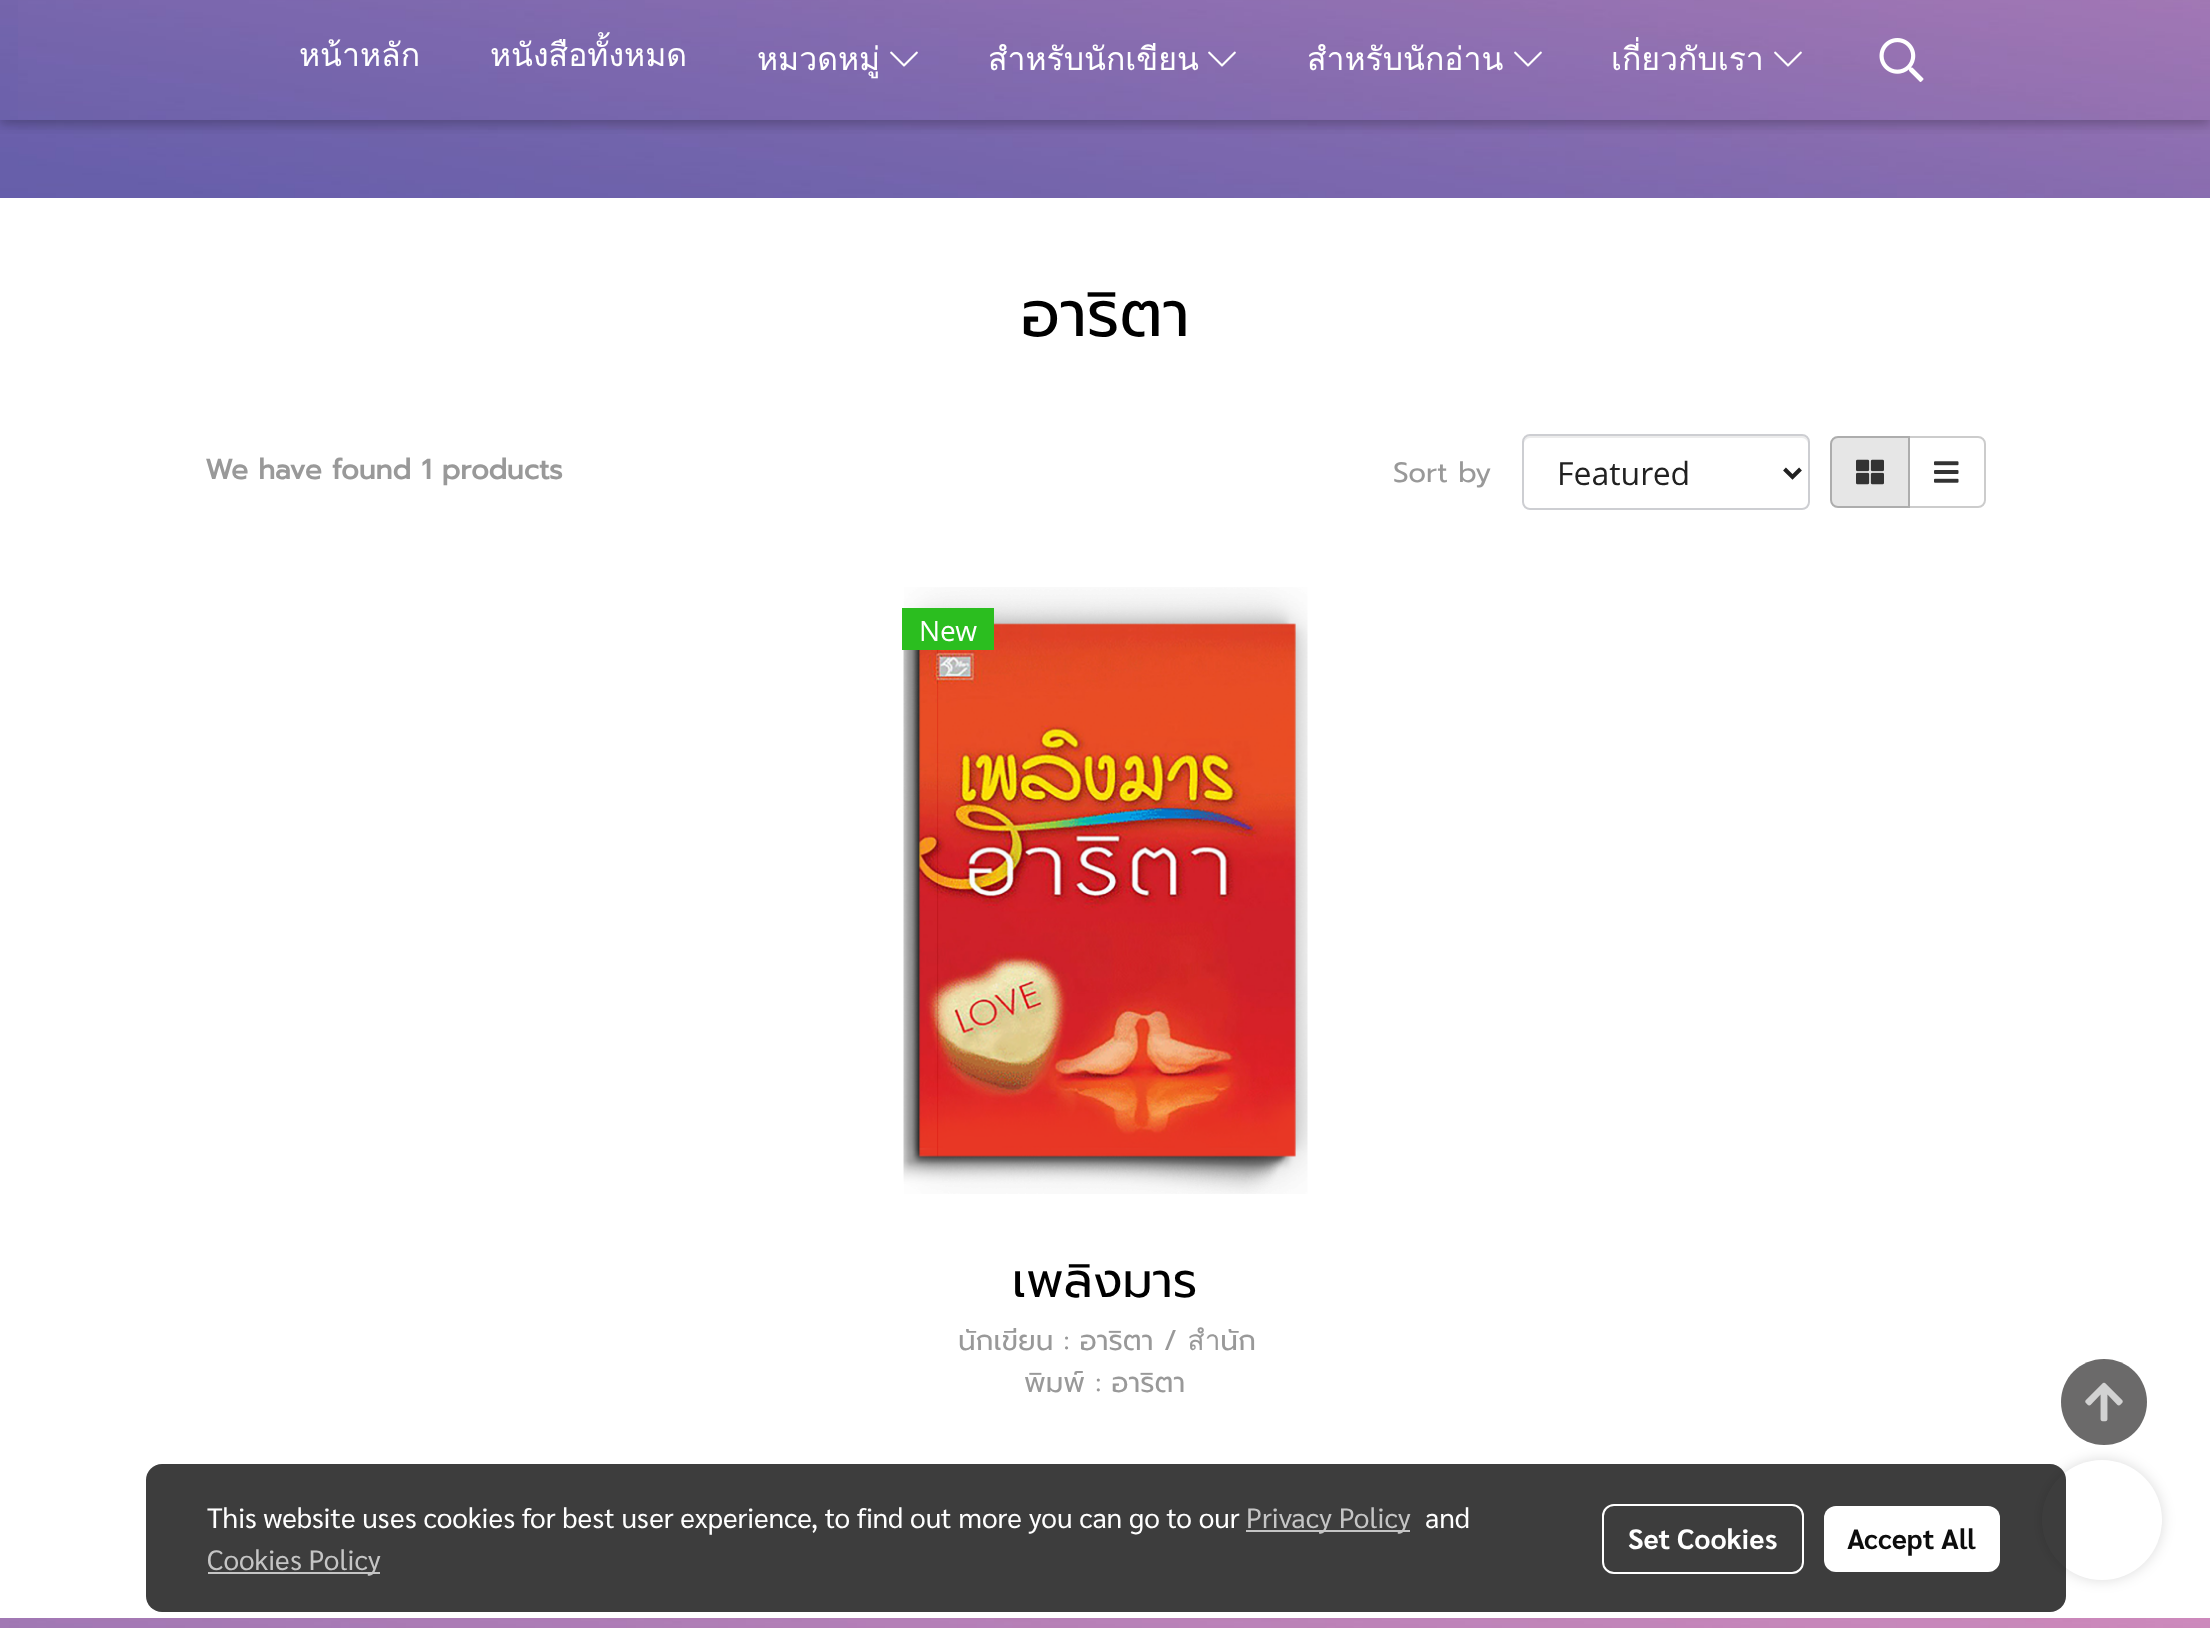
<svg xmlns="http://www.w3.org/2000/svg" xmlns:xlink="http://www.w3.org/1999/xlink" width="2210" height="1628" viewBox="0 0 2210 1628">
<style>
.cls-1{font:32px Loma;fill:#ffffff}
.cls-2{font:64px Prompt;fill:#000000}
.cls-3{font:bold 28px Prompt;fill:#999999}
.cls-4{font:28px Prompt;fill:#999999}
.cls-5{font:32px Open Sans;fill:#212121}
.cls-6{font:28px Open Sans;fill:#ffffff}
.cls-7{font:48px Prompt;fill:#000000}
.cls-8{font:28px Sarabun;fill:#ffffff}
.cls-9{font:28px Sarabun;fill:#c5c5c5}
.cls-10{font:bold 28px Sarabun;fill:#ffffff}
.cls-11{font:bold 28px Sarabun;fill:#0d0d0d}
</style>
<defs>
<clipPath id="clip1"><rect x="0" y="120" width="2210" height="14"/></clipPath>
<clipPath id="clip2"><rect x="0" y="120" width="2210" height="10"/></clipPath>
</defs>
<rect width="100%" height="100%" fill="#ffffff"/>
<image xlink:href="image0.png" x="0" y="0" width="2210" height="198"/>
<g clip-path="url(#clip1)">
<rect fill="#000000" fill-opacity="0.12" filter="blur(10px)" x="0" y="4" width="2210" height="120"/>
</g>
<g clip-path="url(#clip2)">
<rect fill="#000000" fill-opacity="0.16" filter="blur(5px)" x="0" y="4" width="2210" height="120"/>
</g>
<image xlink:href="image1.png" x="18" y="0" width="2192" height="120"/>
<image xlink:href="image2.png" x="890" y="51" width="28" height="16"/>
<image xlink:href="image3.png" x="1208" y="51" width="28" height="16"/>
<image xlink:href="image4.png" x="1514" y="51" width="28" height="16"/>
<image xlink:href="image5.png" x="1774" y="51" width="28" height="16"/>
<image xlink:href="image6.png" x="1879" y="38" width="45" height="44"/>
<path fill="#ececec" d="M1530 438H1802C1805 438 1808 441 1808 444V442C1808 439 1805 436 1802 436H1530C1527 436 1524 439 1524 442V444C1524 441 1527 438 1530 438Z"/>
<rect fill="none" stroke="#cdced2" stroke-width="2" x="1523" y="435" width="286" height="74" rx="7"/>
<path fill="none" stroke="#212121" stroke-width="4" d="M1784.5 469L1792.5 477L1800.5 469"/>
<path fill="none" stroke="#cccccc" stroke-width="2" d="M1909 437H1978C1982 437 1985 440 1985 444V500C1985 504 1982 507 1978 507H1909Z"/>
<path fill="#e6e6e6" stroke="#adadad" stroke-width="2" d="M1838 437H1909V507H1838C1834 507 1831 504 1831 500V444C1831 440 1834 437 1838 437Z"/>
<image xlink:href="image7.png" x="1856" y="459" width="28" height="26"/>
<image xlink:href="image8.png" x="1934" y="461" width="25" height="22"/>
<image xlink:href="image9.png" x="903" y="587" width="405" height="607"/>
<rect fill="#2bbe1f" x="902" y="608" width="92" height="42"/>
<image xlink:href="image10.png" x="0" y="1618" width="2210" height="10"/>
<rect fill="#000000" fill-opacity="0.14" filter="blur(7px)" x="2042" y="1460" width="120" height="120" rx="60"/>
<path fill="#6b6a6a" d="M2104 1359C2080 1359 2061 1378 2061 1402C2061 1426 2080 1445 2104 1445C2128 1445 2147 1426 2147 1402C2147 1378 2128 1359 2104 1359Z"/>
<image xlink:href="image11.png" x="2085" y="1382" width="38" height="40"/>
<circle fill="#ffffff" cx="2102" cy="1520" r="60"/>
<rect fill="#000000" fill-opacity="0.76" x="146" y="1464" width="1920" height="148" rx="16"/>
<rect fill="#c5c5c5" x="1246" y="1530" width="164" height="2"/>
<rect fill="#c5c5c5" x="208" y="1572" width="172" height="2"/>
<rect fill="none" stroke="#ffffff" stroke-width="2" x="1603" y="1505" width="200" height="68" rx="11"/>
<rect fill="#ffffff" x="1824" y="1506" width="176" height="66" rx="12"/>
<text class="cls-1" x="299" y="66">หน้าหลัก</text>
<text class="cls-1" x="490" y="66">หนังสือทั้งหมด</text>
<text class="cls-1" x="757" y="70">หมวดหมู่</text>
<text class="cls-1" x="988" y="70">สำหรับนักเขียน</text>
<text class="cls-1" x="1307" y="70">สำหรับนักอ่าน</text>
<text class="cls-1" x="1611" y="70">เกี่ยวกับเรา</text>
<text class="cls-2" x="1021" y="336">อาริตา</text>
<text class="cls-3" x="205" y="479">We have found 1 products</text>
<text class="cls-4" x="1393" y="482">Sort by</text>
<text class="cls-5" x="1557" y="485">Featured</text>
<text class="cls-6" x="919" y="641">New</text>
<text class="cls-7" x="1012" y="1297">เพลิงมาร</text>
<text class="cls-4" x="958" y="1350">นักเขียน : อาริตา / สำนัก</text>
<text class="cls-4" x="1024" y="1392">พิมพ์ : อาริตา</text>
<text class="cls-8" x="207" y="1528">This website uses cookies for best user experience, to find out more you can go to our</text>
<text class="cls-9" x="1246" y="1528">Privacy Policy</text>
<text class="cls-8" x="1425" y="1528">and</text>
<text class="cls-9" x="207" y="1570">Cookies Policy</text>
<text class="cls-10" x="1628" y="1549">Set Cookies</text>
<text class="cls-11" x="1847" y="1549">Accept All</text>
</svg>
